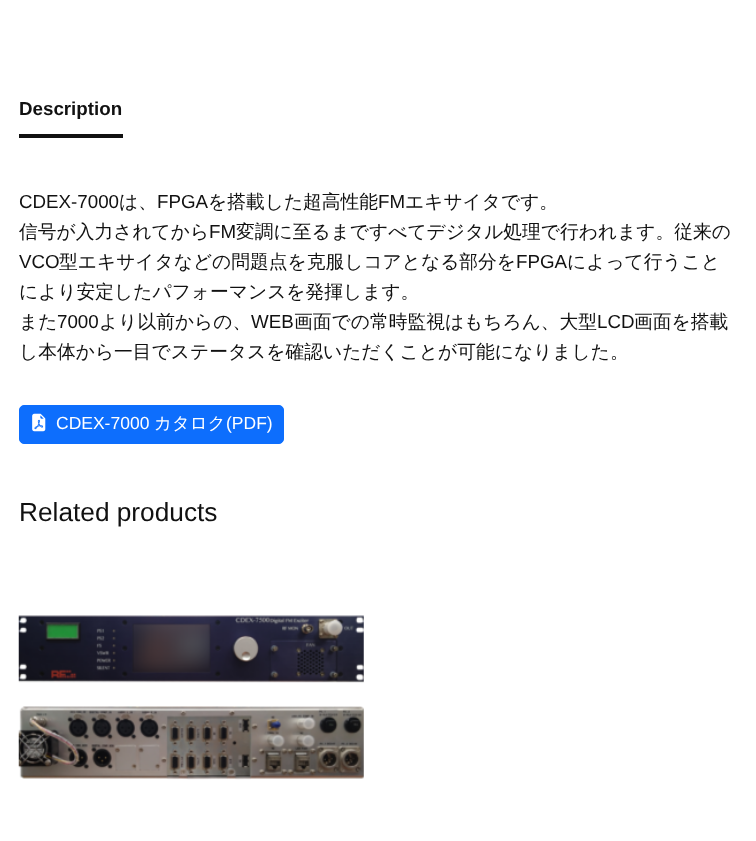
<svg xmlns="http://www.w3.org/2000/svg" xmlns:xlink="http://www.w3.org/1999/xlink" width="756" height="841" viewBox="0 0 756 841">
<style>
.cls-1{font:bold 18.75px Liberation Sans;fill:#111111}
.cls-2{font:18.75px Liberation Sans;fill:#111111}
.cls-3{font:500 18.75px WenQuanYi Zen Hei;fill:#111111}
.cls-4{font:17.5px Liberation Sans;fill:#ffffff}
.cls-5{font:500 17.5px WenQuanYi Zen Hei;fill:#ffffff}
.cls-6{font:26.25px Liberation Sans;fill:#111111}
</style>
<rect width="100%" height="100%" fill="#ffffff"/>
<rect fill="#111111" x="19" y="134" width="104" height="4"/>
<rect fill="#0d6efd" stroke="#0d6efd" x="19.5" y="405.5" width="264" height="38" rx="4.5"/>
<image xlink:href="image0.png" x="32" y="413" width="14" height="19"/>
<image xlink:href="image1.png" x="18" y="615" width="346" height="165"/>
<text class="cls-1" x="19" y="115">Description</text>
<text class="cls-2" x="19" y="208">CDEX-7000</text>
<text class="cls-3" x="119" y="208">は、</text>
<text class="cls-2" x="157" y="208">FPGA</text>
<text class="cls-3" x="208" y="208">を搭載した超高性能</text>
<text class="cls-2" x="378" y="208">FM</text>
<text class="cls-3" x="405" y="208">エキサイタです。</text>
<text class="cls-3" x="19" y="238">信号が入力されてから</text>
<text class="cls-2" x="209" y="238">FM</text>
<text class="cls-3" x="236" y="238">変調に至るまですべてデジタル処理で行われます。従来の</text>
<text class="cls-2" x="19" y="268">VCO</text>
<text class="cls-3" x="59" y="268">型エキサイタなどの問題点を克服しコアとなる部分を</text>
<text class="cls-2" x="516" y="268">FPGA</text>
<text class="cls-3" x="567" y="268">によって行うこと</text>
<text class="cls-3"><tspan x="19" y="298">により安定したパフォーマンスを発揮します。</tspan><tspan x="19" y="328">また</tspan></text>
<text class="cls-2" x="57" y="328">7000</text>
<text class="cls-3" x="99" y="328">より以前からの、</text>
<text class="cls-2" x="251" y="328">WEB</text>
<text class="cls-3" x="294" y="328">画面での常時監視はもちろん、大型</text>
<text class="cls-2" x="597" y="328">LCD</text>
<text class="cls-3" x="634" y="328">画面を搭載</text>
<text class="cls-3" x="19" y="358">し本体から一目でステータスを確認いただくことが可能になりました。</text>
<text class="cls-4" x="56" y="429">CDEX-7000</text>
<text class="cls-5" x="154" y="429">カタログ</text>
<text class="cls-4" x="226" y="429">(PDF)</text>
<text class="cls-6" x="19" y="521">Related products</text>
</svg>
